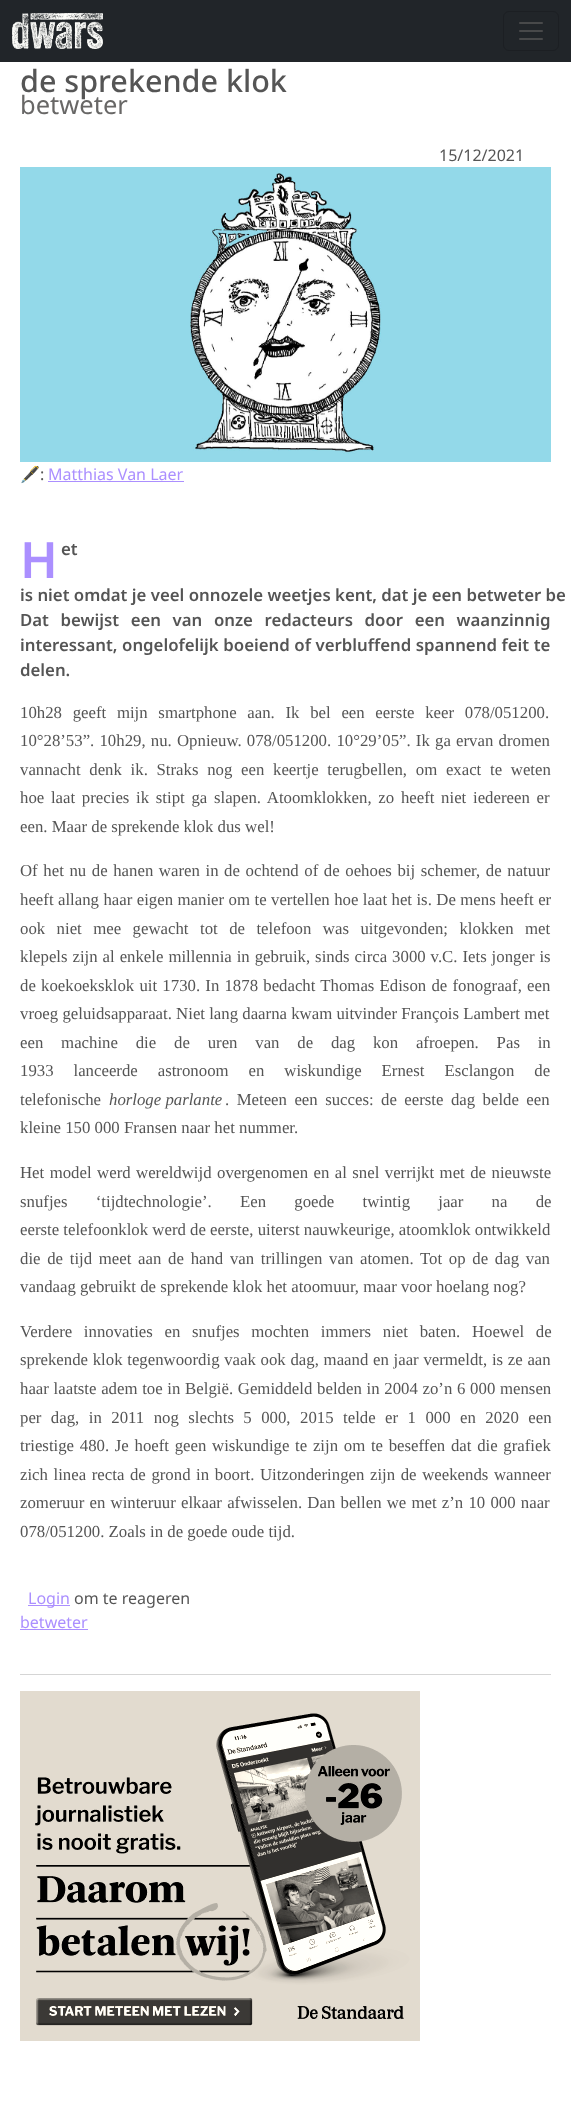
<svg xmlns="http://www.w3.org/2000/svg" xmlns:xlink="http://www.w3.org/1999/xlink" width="571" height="2115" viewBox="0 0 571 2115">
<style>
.cls-1{font:500 30.5px Noto Sans;fill:#555555}
.cls-2{font:25.5px Noto Sans;fill:#686766}
.cls-3{font:16px Noto Sans;fill:#555555}
.cls-4{font:16px Noto Color Emoji;fill:#555555}
.cls-5{font:16px Noto Sans;fill:#ab8fff}
.cls-6{font:600 50px Noto Sans;fill:#ab8fff}
.cls-7{font:600 16.8px Noto Sans;fill:#555555}
.cls-8{font:16.8px Liberation Serif;fill:#555555}
.cls-9{font:italic 16.8px Liberation Serif;fill:#555555}
</style>
<rect width="100%" height="100%" fill="#ffffff"/>
<rect fill="#212529" x="0" y="0" width="571" height="62"/>
<image xlink:href="image0.png" x="12" y="13" width="91" height="36"/>
<rect fill="none" stroke="#1c1f23" x="503.5" y="11.5" width="55" height="39" rx="5.5"/>
<image xlink:href="image1.png" x="519" y="22" width="24" height="18"/>
<image xlink:href="image2.png" x="20" y="167" width="531" height="295"/>
<rect fill="#ab8fff" x="48" y="481" width="136" height="1"/>
<rect fill="#ab8fff" x="28" y="1605" width="42" height="1"/>
<rect fill="#ab8fff" x="20" y="1629" width="68" height="1"/>
<rect fill="#d5d5d5" x="20" y="1674" width="531" height="1"/>
<image xlink:href="image3.png" x="20" y="1691" width="400" height="350"/>
<text class="cls-1" x="20" y="92">de sprekende klok</text>
<text class="cls-2" x="20" y="114">betweter</text>
<text class="cls-3" x="439" y="161">15/12/2021</text>
<text class="cls-4" x="20" y="480">🖋</text>
<text class="cls-3" x="40" y="480">:</text>
<text class="cls-5" x="48" y="480">Matthias Van Laer</text>
<text class="cls-6" x="20" y="578">H</text>
<text class="cls-7" x="61" y="555">et</text>
<text class="cls-7"><tspan x="20" y="601">is niet omdat je veel onnozele weetjes kent, dat je een betweter be</tspan><tspan x="20" y="626" word-spacing="7.25">Dat bewijst een van onze redacteurs door een waanzinnig</tspan><tspan x="20" y="651" word-spacing="0.25">interessant, ongelofelijk boeiend of verbluffend spannend feit te</tspan><tspan x="20" y="676">delen.</tspan></text>
<text class="cls-8"><tspan x="20" y="718" word-spacing="6.5">10h28 geeft mijn smartphone aan. Ik bel een eerste keer 078/051200.</tspan><tspan x="20" y="746" word-spacing="1">10°28’53”. 10h29, nu. Opnieuw. 078/051200. 10°29’05”. Ik ga ervan dromen</tspan><tspan x="20" y="775" word-spacing="4.5">vannacht denk ik. Straks nog een keertje terugbellen, om exact te weten</tspan><tspan x="20" y="803" word-spacing="2.5">hoe laat precies ik stipt ga slapen. Atoomklokken, zo heeft niet iedereen er</tspan><tspan x="20" y="832">een. Maar de sprekende klok dus wel!</tspan></text>
<text class="cls-8"><tspan x="20" y="876" word-spacing="1.4">Of het nu de hanen waren in de ochtend of de oehoes bij schemer, de natuur</tspan><tspan x="20" y="905" word-spacing="0.25">heeft allang haar eigen manier om te vertellen hoe laat het is. De mens heeft er</tspan><tspan x="20" y="934" word-spacing="7.25">ook niet mee gewacht tot de telefoon was uitgevonden; klokken met</tspan><tspan x="20" y="962" word-spacing="0.75">klepels zijn al enkele millennia in gebruik, sinds circa 3000 v.C. Iets jonger is</tspan><tspan x="20" y="991" word-spacing="1">de koekoeksklok uit 1730. In 1878 bedacht Thomas Edison de fonograaf, een</tspan><tspan x="20" y="1019">vroeg geluidsapparaat. Niet lang daarna kwam uitvinder François Lambert met</tspan><tspan x="20" y="1048" word-spacing="13.6">een machine die de uren van de dag kon afroepen. Pas in</tspan><tspan x="20" y="1076" word-spacing="15.75">1933 lanceerde astronoom en wiskundige Ernest Esclangon de</tspan><tspan x="20" y="1105">telefonische</tspan></text>
<text class="cls-9" x="109" y="1105">horloge parlante</text>
<text class="cls-8" x="225" y="1105" word-spacing="3.25">. Meteen een succes: de eerste dag belde een</text>
<text class="cls-8" x="20" y="1133">kleine 150 000 Fransen naar het nummer.</text>
<text class="cls-8"><tspan x="20" y="1178" word-spacing="1.25">Het model werd wereldwijd overgenomen en al snel verrijkt met de nieuwste</tspan><tspan x="20" y="1207" word-spacing="24">snufjes ‘tijdtechnologie’. Een goede twintig jaar na de</tspan><tspan x="20" y="1235">eerste telefoonklok werd de eerste, uiterst nauwkeurige, atoomklok ontwikkeld</tspan><tspan x="20" y="1264" word-spacing="2.5">die de tijd meet aan de hand van trillingen van atomen. Tot op de dag van</tspan><tspan x="20" y="1292">vandaag gebruikt de sprekende klok het atoomuur, maar voor hoelang nog?</tspan></text>
<text class="cls-8"><tspan x="20" y="1337" word-spacing="7.5">Verdere innovaties en snufjes mochten immers niet baten. Hoewel de</tspan><tspan x="20" y="1365" word-spacing="0.5">sprekende klok tegenwoordig vaak ook dag, maand en jaar vermeldt, is ze aan</tspan><tspan x="20" y="1394" word-spacing="0.5">haar laatste adem toe in België. Gemiddeld belden in 2004 zo’n 6 000 mensen</tspan><tspan x="20" y="1423" word-spacing="5.25">per dag, in 2011 nog slechts 5 000, 2015 telde er 1 000 en 2020 een</tspan><tspan x="20" y="1451" word-spacing="1.5">triestige 480. Je hoeft geen wiskundige te zijn om te beseffen dat die grafiek</tspan><tspan x="20" y="1480" word-spacing="1.4">zich linea recta de grond in boort. Uitzonderingen zijn de weekends wanneer</tspan><tspan x="20" y="1508" word-spacing="1">zomeruur en winteruur elkaar afwisselen. Dan bellen we met z’n 10 000 naar</tspan><tspan x="20" y="1537">078/051200. Zoals in de goede oude tijd.</tspan></text>
<text class="cls-5" x="28" y="1604">Login</text>
<text class="cls-3" x="74" y="1604">om te reageren</text>
<text class="cls-5" x="20" y="1628">betweter</text>
</svg>
